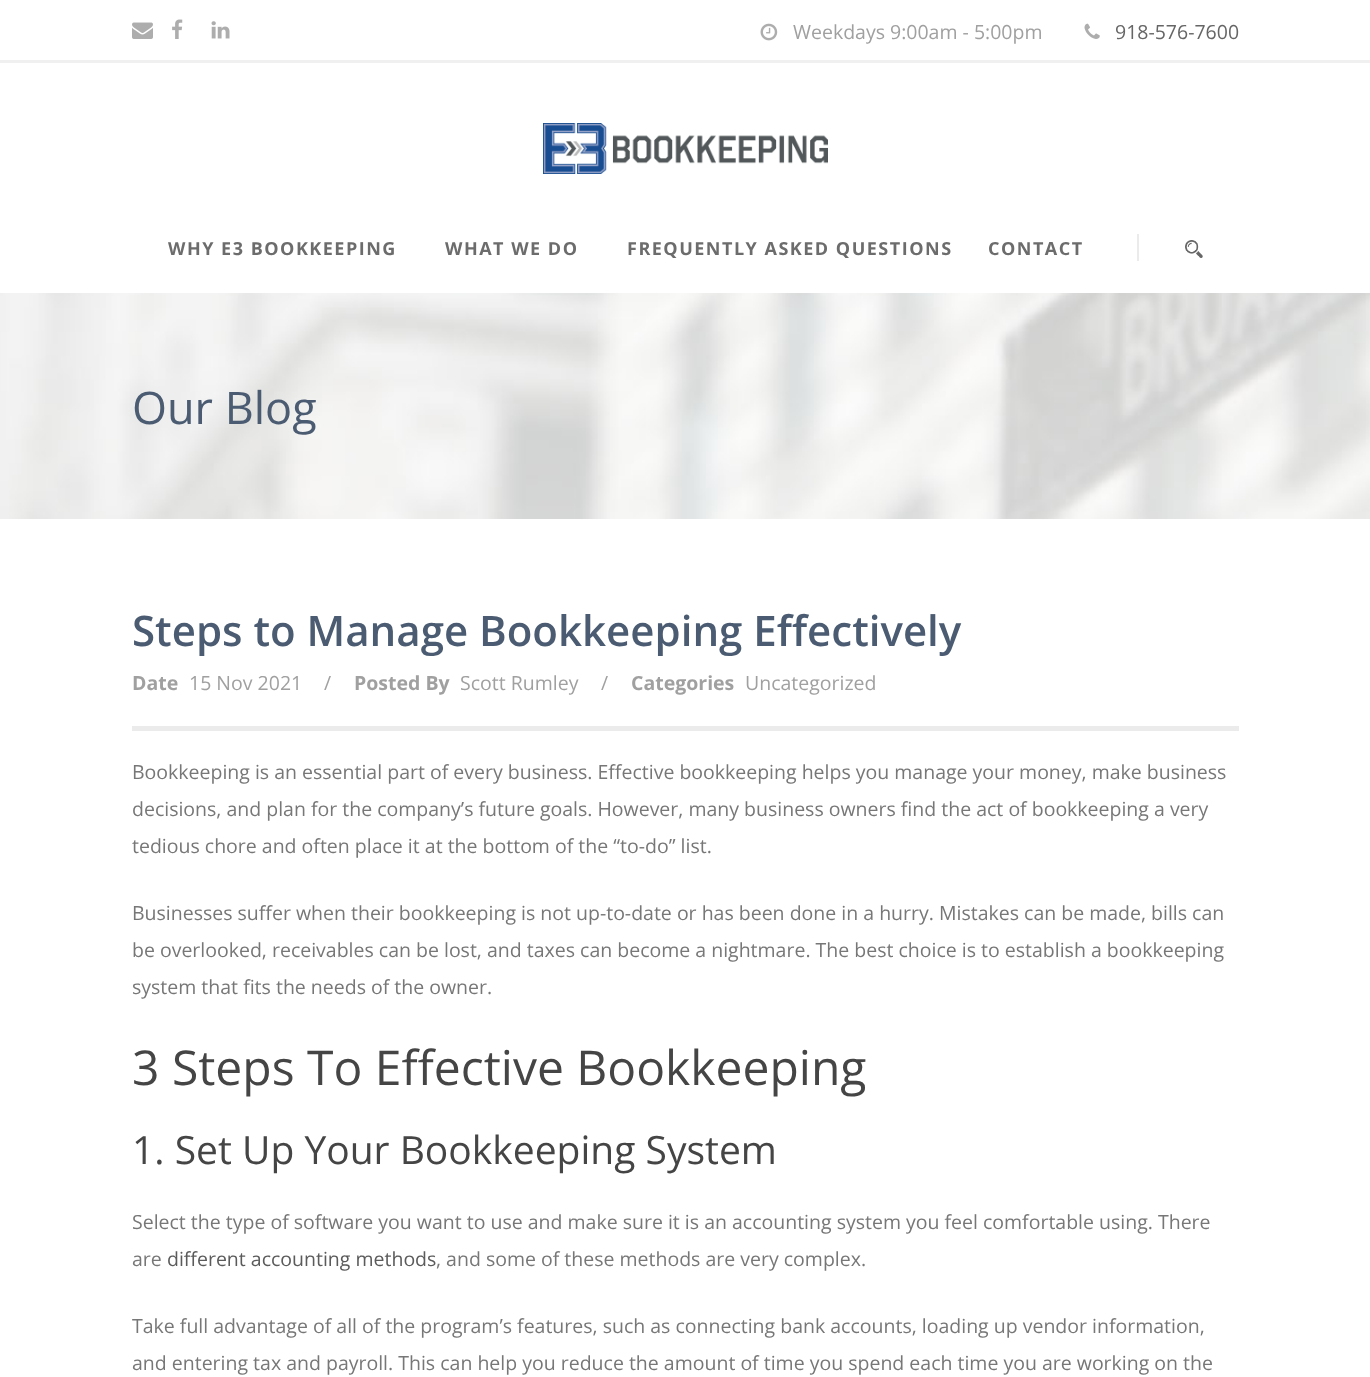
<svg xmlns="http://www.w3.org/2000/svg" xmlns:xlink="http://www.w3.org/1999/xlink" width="1370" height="1377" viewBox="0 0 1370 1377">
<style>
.cls-1{font:19.5px Open Sans;fill:#a0a0a0}
.cls-2{font:19.5px Open Sans;fill:#666666}
.cls-3{font:bold 18px Open Sans;letter-spacing:1.5px;fill:#6c6c6c}
.cls-4{font:45px Open Sans;fill:#4b5c72}
.cls-5{font:600 42px Open Sans;fill:#4b5c72}
.cls-6{font:bold 19.5px Open Sans;fill:#a0a0a0}
.cls-7{font:19.5px Open Sans;fill:#777777}
.cls-8{font:48px Open Sans;fill:#454545}
.cls-9{font:39px Open Sans;fill:#454545}
.cls-10{font:19.5px Open Sans;fill:#5b5b5b}
</style>
<rect width="100%" height="100%" fill="#ffffff"/>
<rect fill="#f0f0f0" x="0" y="60" width="1370" height="3"/>
<image xlink:href="image0.png" x="132" y="22" width="21" height="17"/>
<image xlink:href="image1.png" x="172" y="19" width="11" height="20"/>
<image xlink:href="image2.png" x="211" y="21" width="19" height="18"/>
<image xlink:href="image3.png" x="760" y="23" width="18" height="18"/>
<image xlink:href="image4.png" x="1084" y="23" width="16" height="16"/>
<image xlink:href="image5.png" x="543" y="123" width="285" height="51"/>
<rect fill="#ebebeb" x="1137" y="234" width="2" height="27"/>
<image xlink:href="image6.png" x="1185" y="240" width="18" height="18"/>
<image xlink:href="image7.png" x="0" y="293" width="1370" height="226"/>
<rect fill="#ebebeb" x="132" y="726" width="1107" height="5"/>
<text class="cls-1" x="793" y="39">Weekdays 9:00am - 5:00pm</text>
<text class="cls-2" x="1115" y="39">918-576-7600</text>
<text class="cls-3" x="168" y="255">WHY E3 BOOKKEEPING</text>
<text class="cls-3" x="445" y="255">WHAT WE DO</text>
<text class="cls-3" x="627" y="255">FREQUENTLY ASKED QUESTIONS</text>
<text class="cls-3" x="988" y="255">CONTACT</text>
<text class="cls-4" x="132" y="424">Our Blog</text>
<text class="cls-5" x="132" y="646">Steps to Manage Bookkeeping Effectively</text>
<text class="cls-6" x="132" y="690">Date</text>
<text class="cls-1" x="189" y="690">15 Nov 2021</text>
<text class="cls-1" x="324" y="690">/</text>
<text class="cls-6" x="354" y="690">Posted By</text>
<text class="cls-1" x="460" y="690">Scott Rumley</text>
<text class="cls-1" x="601" y="690">/</text>
<text class="cls-6" x="631" y="690">Categories</text>
<text class="cls-1" x="745" y="690">Uncategorized</text>
<text class="cls-7"><tspan x="132" y="779">Bookkeeping is an essential part of every business. Effective bookkeeping helps you manage your money, make business</tspan><tspan x="132" y="816">decisions, and plan for the company’s future goals. However, many business owners find the act of bookkeeping a very</tspan><tspan x="132" y="853">tedious chore and often place it at the bottom of the “to-do” list.</tspan></text>
<text class="cls-7"><tspan x="132" y="920">Businesses suffer when their bookkeeping is not up-to-date or has been done in a hurry. Mistakes can be made, bills can</tspan><tspan x="132" y="957">be overlooked, receivables can be lost, and taxes can become a nightmare. The best choice is to establish a bookkeeping</tspan><tspan x="132" y="994">system that fits the needs of the owner.</tspan></text>
<text class="cls-8" x="132" y="1085">3 Steps To Effective Bookkeeping</text>
<text class="cls-9" x="132" y="1164">1. Set Up Your Bookkeeping System</text>
<text class="cls-7"><tspan x="132" y="1229">Select the type of software you want to use and make sure it is an accounting system you feel comfortable using. There</tspan><tspan x="132" y="1266">are</tspan></text>
<text class="cls-10" x="167" y="1266">different accounting methods</text>
<text class="cls-7" x="436" y="1266">, and some of these methods are very complex.</text>
<text class="cls-7"><tspan x="132" y="1333">Take full advantage of all of the program’s features, such as connecting bank accounts, loading up vendor information,</tspan><tspan x="132" y="1370">and entering tax and payroll. This can help you reduce the amount of time you spend each time you are working on the</tspan></text>
</svg>
